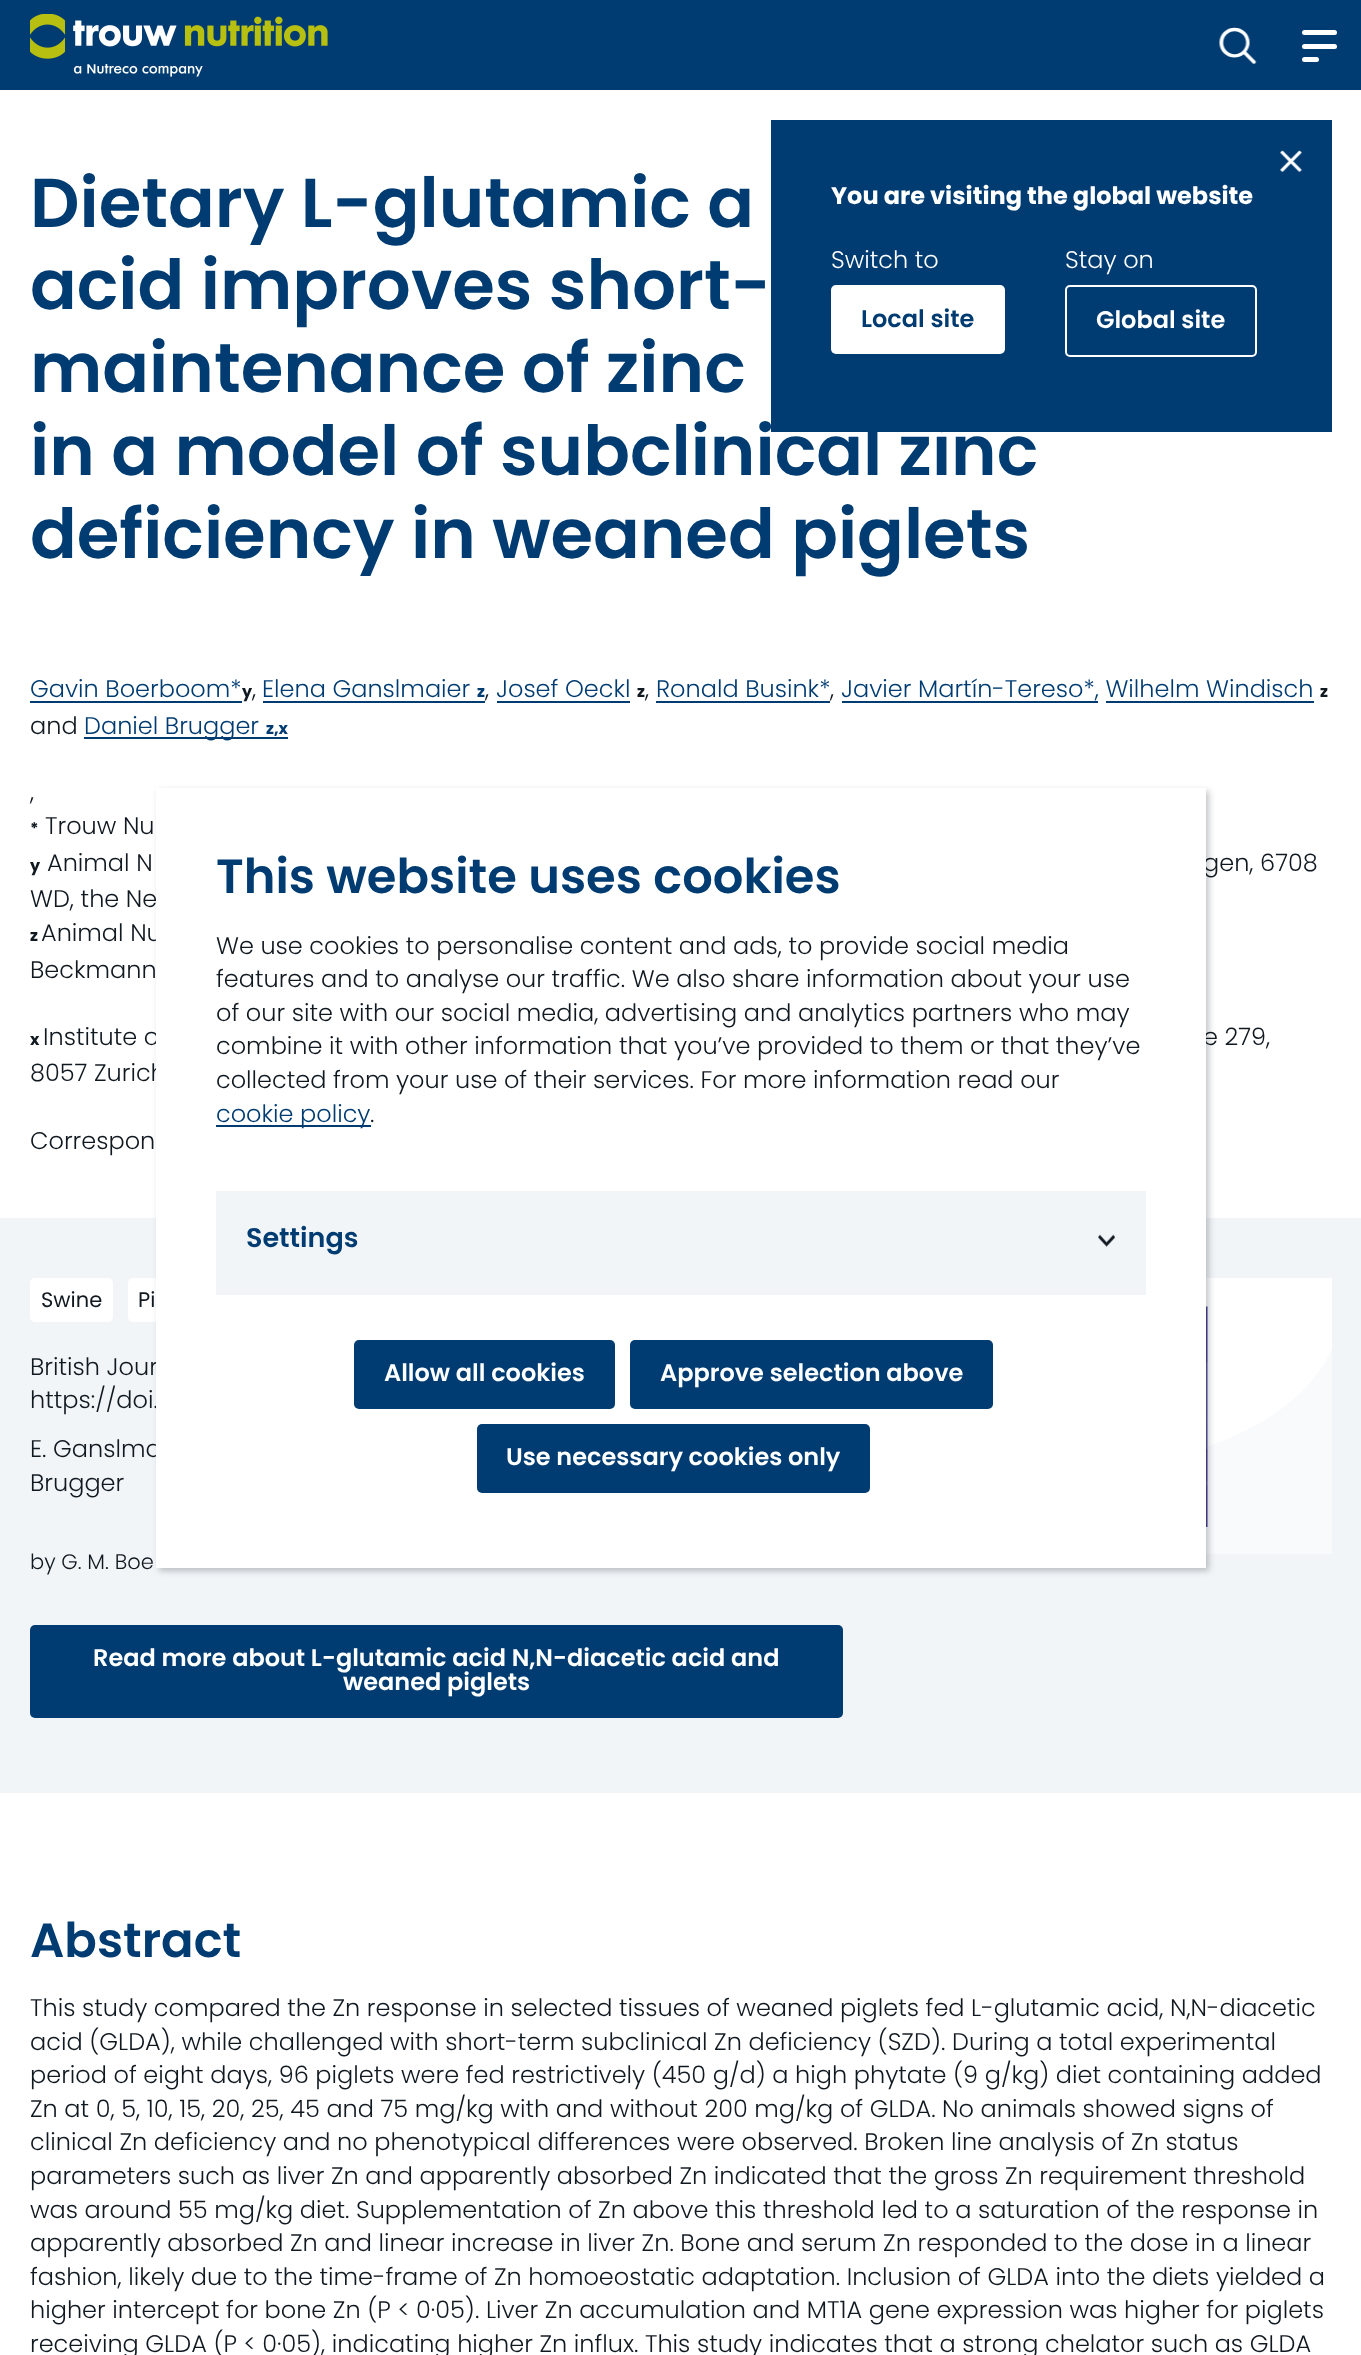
<svg xmlns="http://www.w3.org/2000/svg" xmlns:xlink="http://www.w3.org/1999/xlink" width="1361" height="2355" viewBox="0 0 1361 2355">
<style>
.cls-1{font:600 69px Poppins;fill:#003c71}
.cls-2{font:300 24px Poppins;fill:#003c71}
.cls-3{font:bold 16px Poppins;fill:#101820}
.cls-4{font:300 24px Poppins;fill:#101820}
.cls-5{font:bold 16px Poppins;fill:#003c71}
.cls-6{font:bold 24px Poppins;fill:#ffffff}
.cls-7{font:300 24px Poppins;fill:#ffffff}
.cls-8{font:600 24px Poppins;fill:#003c71}
.cls-9{font:600 24px Poppins;fill:#ffffff}
.cls-10{font:21px Poppins;fill:#101820}
.cls-11{font:300 21px Poppins;fill:#101820}
.cls-12{font:600 48px Poppins;fill:#003c71}
.cls-13{font:600 27px Poppins;fill:#003c71}
</style>
<rect width="100%" height="100%" fill="#ffffff"/>
<rect fill="#003c71" x="0" y="0" width="1361" height="90"/>
<image xlink:href="image0.png" x="30" y="14" width="298" height="63"/>
<image xlink:href="image1.png" x="1219" y="27" width="38" height="37"/>
<rect fill="#ffffff" x="1302" y="30" width="35" height="5" rx="2.5"/>
<rect fill="#ffffff" x="1302" y="44" width="35" height="5" rx="2.5"/>
<rect fill="#ffffff" x="1302" y="57" width="17" height="5" rx="2.5"/>
<rect fill="#003c71" x="263" y="701" width="222" height="2"/>
<rect fill="#003c71" x="497" y="701" width="133" height="2"/>
<rect fill="#003c71" x="656" y="701" width="174" height="2"/>
<rect fill="#003c71" x="842" y="701" width="256" height="2"/>
<rect fill="#003c71" x="1106" y="701" width="208" height="2"/>
<rect fill="#003c71" x="84" y="737" width="204" height="2"/>
<rect fill="#003c71" x="771" y="120" width="561" height="312"/>
<image xlink:href="image2.png" x="1280" y="150" width="22" height="22"/>
<rect fill="#ffffff" x="831" y="285" width="174" height="69" rx="5"/>
<rect fill="none" stroke="#ffffff" stroke-width="2" x="1066" y="286" width="190" height="70" rx="4"/>
<rect fill="#f2f5f8" x="0" y="1218" width="1361" height="575"/>
<rect fill="#f9fafc" x="1206" y="1348" width="126" height="206"/>
<rect fill="#ffffff" x="30" y="1278" width="83" height="44" rx="5"/>
<rect fill="#ffffff" x="128" y="1278" width="88" height="44" rx="5"/>
<rect fill="#003c71" x="30" y="1625" width="813" height="93" rx="5"/>
<path fill="#ffffff" d="M918 1278H1332V1348C1303 1416 1203 1466 1084 1466C1020 1466 963 1452 918 1429Z"/>
<image xlink:href="image3.png" x="1206" y="1306" width="2" height="221"/>
<rect fill="#101820" fill-opacity="0.25" filter="blur(3px)" x="159" y="791" width="1050" height="780"/>
<text class="cls-1"><tspan x="30" y="227">Dietary L-glutamic a</tspan><tspan x="30" y="309">acid improves short-</tspan><tspan x="30" y="392">maintenance of zinc</tspan><tspan x="30" y="475">in a model of subclinical zinc</tspan><tspan x="30" y="558">deficiency in weaned piglets</tspan></text>
<text class="cls-2" x="30" y="697">Gavin Boerboom*</text>
<text class="cls-3" x="242" y="697">y</text>
<rect fill="#003c71" x="30" y="701" width="212" height="2"/>
<text class="cls-4" x="252" y="697">,</text>
<text class="cls-2" x="262" y="697">Elena Ganslmaier</text>
<text class="cls-4" x="485" y="697">,</text>
<text class="cls-5" x="477" y="697">z</text>
<text class="cls-2" x="496" y="697">Josef Oeckl</text>
<text class="cls-3" x="637" y="697">z</text>
<text class="cls-4" x="645" y="697">,</text>
<text class="cls-2" x="656" y="697">Ronald Busink*</text>
<text class="cls-4" x="830" y="697">,</text>
<text class="cls-2" x="841" y="697">Javier Martín-Tereso*, Wilhelm Windisch</text>
<text class="cls-3" x="1320" y="697">z</text>
<text class="cls-4" x="30" y="734">and</text>
<text class="cls-2" x="84" y="734">Daniel Brugger</text>
<text class="cls-5" x="266" y="734">z,x</text>
<text class="cls-4" x="30" y="800">,</text>
<text class="cls-3" x="30" y="834">*</text>
<text class="cls-4" x="45" y="834">Trouw Nu</text>
<text class="cls-3" x="30" y="871">y</text>
<text class="cls-4" x="47" y="871">Animal N</text>
<text class="cls-4" x="1203" y="871">gen, 6708</text>
<text class="cls-4" x="30" y="907">WD, the Ne</text>
<text class="cls-3" x="30" y="941">z</text>
<text class="cls-4" x="41" y="941">Animal Nu</text>
<text class="cls-4" x="30" y="978">Beckmann</text>
<text class="cls-3" x="30" y="1045">x</text>
<text class="cls-4" x="43" y="1045">Institute o</text>
<text class="cls-4" x="1203" y="1045">e 279,</text>
<text class="cls-4" x="30" y="1081">8057 Zurich</text>
<text class="cls-4" x="30" y="1149">Correspon</text>
<text class="cls-6" x="831" y="204">You are visiting the global website</text>
<text class="cls-7" x="831" y="268">Switch to</text>
<text class="cls-8" x="861" y="327">Local site</text>
<text class="cls-7" x="1065" y="268">Stay on</text>
<text class="cls-9" x="1096" y="328">Global site</text>
<text class="cls-10" x="41" y="1307">Swine</text>
<text class="cls-10" x="138" y="1307">Pi</text>
<text class="cls-4"><tspan x="30" y="1375">British Jour</tspan><tspan x="30" y="1408">https://doi.</tspan></text>
<text class="cls-4"><tspan x="30" y="1457">E. Ganslma</tspan><tspan x="30" y="1491">Brugger</tspan></text>
<text class="cls-11" x="30" y="1569">by G. M. Boe</text>
<text class="cls-9" x="93" y="1666">Read more about L-glutamic acid N,N-diacetic acid and</text>
<text class="cls-9" x="343" y="1690">weaned piglets</text>
<text class="cls-12" x="30" y="1957">Abstract</text>
<text class="cls-4"><tspan x="30" y="2016">This study compared the Zn response in selected tissues of weaned piglets fed L-glutamic acid, N,N-diacetic</tspan><tspan x="30" y="2050">acid (GLDA), while challenged with short-term subclinical Zn deficiency (SZD). During a total experimental</tspan><tspan x="30" y="2083">period of eight days, 96 piglets were fed restrictively (450 g/d) a high phytate (9 g/kg) diet containing added</tspan><tspan x="30" y="2117">Zn at 0, 5, 10, 15, 20, 25, 45 and 75 mg/kg with and without 200 mg/kg of GLDA. No animals showed signs of</tspan><tspan x="30" y="2150">clinical Zn deficiency and no phenotypical differences were observed. Broken line analysis of Zn status</tspan><tspan x="30" y="2184">parameters such as liver Zn and apparently absorbed Zn indicated that the gross Zn requirement threshold</tspan><tspan x="30" y="2218">was around 55 mg/kg diet. Supplementation of Zn above this threshold led to a saturation of the response in</tspan><tspan x="30" y="2251">apparently absorbed Zn and linear increase in liver Zn. Bone and serum Zn responded to the dose in a linear</tspan><tspan x="30" y="2285">fashion, likely due to the time-frame of Zn homoeostatic adaptation. Inclusion of GLDA into the diets yielded a</tspan><tspan x="30" y="2318">higher intercept for bone Zn (P &lt; 0·05). Liver Zn accumulation and MT1A gene expression was higher for piglets</tspan><tspan x="30" y="2352">receiving GLDA (P &lt; 0·05), indicating higher Zn influx. This study indicates that a strong chelator such as GLDA</tspan></text>
<rect fill="#ffffff" x="156" y="788" width="1050" height="780"/>
<text class="cls-12" x="216" y="893">This website uses cookies</text>
<text class="cls-4"><tspan x="216" y="954">We use cookies to personalise content and ads, to provide social media</tspan><tspan x="216" y="987">features and to analyse our traffic. We also share information about your use</tspan><tspan x="216" y="1021">of our site with our social media, advertising and analytics partners who may</tspan><tspan x="216" y="1054">combine it with other information that you’ve provided to them or that they’ve</tspan><tspan x="216" y="1088">collected from your use of their services. For more information read our</tspan></text>
<rect fill="#003c71" x="216" y="1125" width="155" height="2"/>
<text class="cls-2" x="216" y="1122">cookie policy</text>
<text class="cls-4" x="370" y="1122">.</text>
<rect fill="#f2f5f8" x="216" y="1191" width="930" height="104"/>
<text class="cls-13" x="246" y="1247">Settings</text>
<image xlink:href="image4.png" x="1098" y="1234" width="17" height="13"/>
<rect fill="#003c71" x="354" y="1340" width="261" height="69" rx="5"/>
<text class="cls-9" x="384" y="1381">Allow all cookies</text>
<rect fill="#003c71" x="630" y="1340" width="363" height="69" rx="5"/>
<text class="cls-9" x="660" y="1381">Approve selection above</text>
<rect fill="#003c71" x="477" y="1424" width="393" height="69" rx="5"/>
<text class="cls-9" x="506" y="1465">Use necessary cookies only</text>
</svg>
